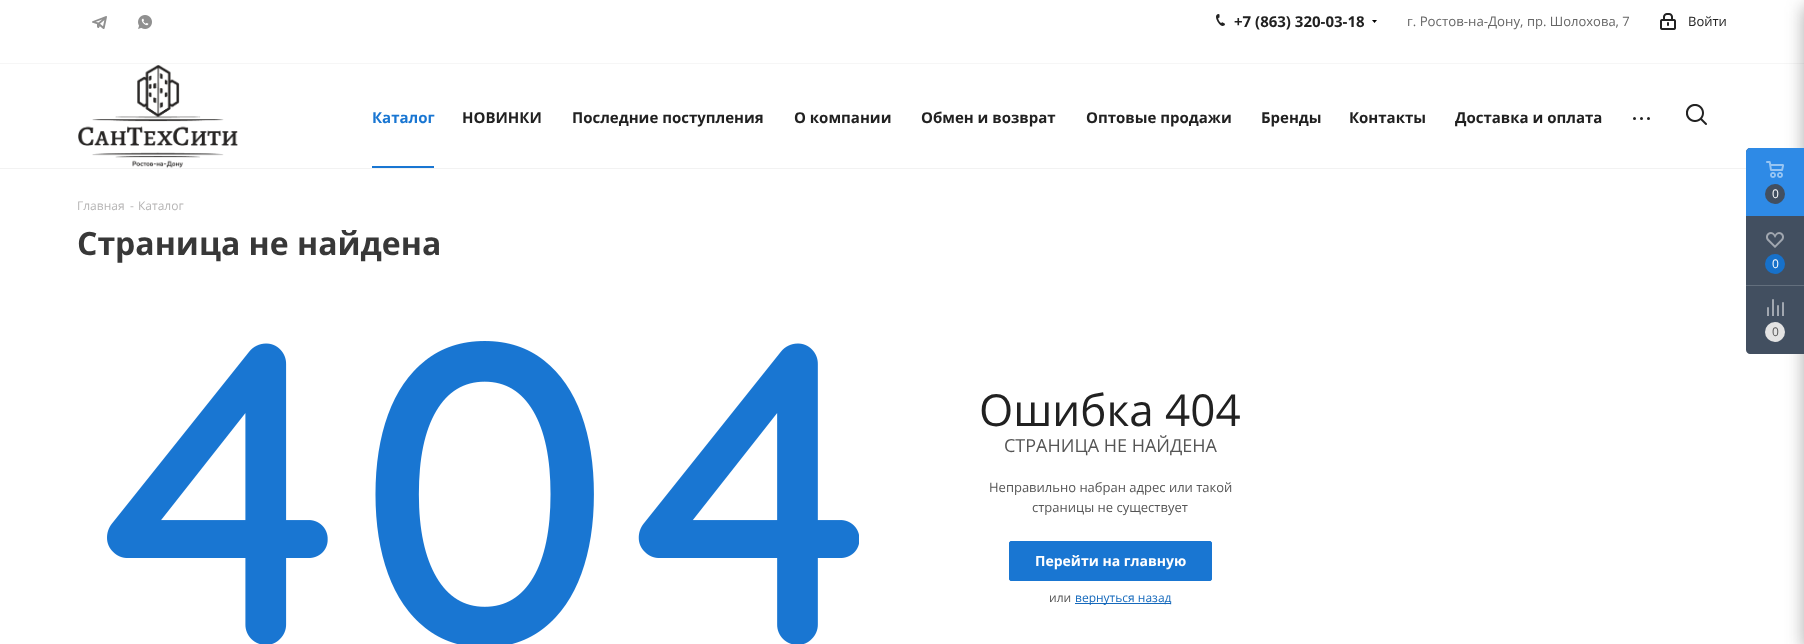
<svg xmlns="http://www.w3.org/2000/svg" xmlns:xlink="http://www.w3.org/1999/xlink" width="1804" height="644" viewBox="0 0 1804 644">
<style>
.cls-1{font:bold 15px Open Sans;fill:#212121}
.cls-2{font:13.25px Open Sans;fill:#666666}
.cls-3{font:13px Open Sans;fill:#666666}
.cls-4{font:13px Open Sans;fill:#212121}
.cls-5{font:bold 15px Open Sans;fill:#1976d2}
.cls-6{font:12px Open Sans;fill:#b6b5b5}
.cls-7{font:bold 32px Open Sans;fill:#383838}
.cls-8{font:44px Open Sans;fill:#212121}
.cls-9{font:18px Open Sans;fill:#555555}
.cls-10{font:13px Open Sans;fill:#555555}
.cls-11{font:bold 14px Open Sans;fill:#ffffff}
.cls-12{font:12px Open Sans;fill:#555555}
.cls-13{font:12px Open Sans;fill:#1569bc}
.cls-14{font:12px Open Sans;fill:#ffffff}
</style>
<rect width="100%" height="100%" fill="#ffffff"/>
<rect fill="#f6f6f6" x="0" y="63" width="1804" height="1"/>
<rect fill="#909090" x="92" y="16" width="15" height="13"/>
<image xlink:href="image0.png" x="90" y="12" width="20" height="20"/>
<rect fill="#909090" x="138" y="15" width="14" height="14"/>
<image xlink:href="image1.png" x="135" y="12" width="20" height="20"/>
<image xlink:href="image2.png" x="1216" y="14" width="9" height="12"/>
<image xlink:href="image3.png" x="1372" y="20" width="5" height="3"/>
<image xlink:href="image4.png" x="1660" y="13" width="16" height="17"/>
<image xlink:href="image5.png" x="78" y="65" width="160" height="103"/>
<rect fill="#1976d2" x="372" y="166" width="62" height="2"/>
<rect fill="#222222" x="1633" y="117" width="17" height="3"/>
<image xlink:href="image6.png" x="1633" y="117" width="17" height="3"/>
<image xlink:href="image7.png" x="1686" y="104" width="21" height="21"/>
<rect fill="#f2f2f2" x="0" y="168" width="1746" height="1"/>
<image xlink:href="image8.png" x="107" y="341" width="752" height="303"/>
<rect fill="#1976d2" stroke="#1976d2" x="1009.5" y="541.5" width="202" height="39" rx="1.5"/>
<rect fill="#1569bc" x="1075" y="603" width="96" height="1"/>
<rect fill="#2c2c2c" fill-opacity="0.4" filter="blur(9px)" x="1804" y="6" width="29" height="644" rx="2"/>
<path fill="#424f60" d="M1750 148H1804V354H1750C1748 354 1746 352 1746 350V152C1746 150 1748 148 1750 148Z"/>
<path fill="#2e8ae6" d="M1750 148H1804V216H1746V152C1746 150 1748 148 1750 148Z"/>
<image xlink:href="image9.png" x="1766" y="161" width="18" height="17"/>
<circle fill="#424f60" cx="1775" cy="194" r="10"/>
<image xlink:href="image10.png" x="1766" y="232" width="18" height="16"/>
<circle fill="#1771ca" cx="1775" cy="264" r="10"/>
<rect fill="#636f7d" x="1746" y="285" width="58" height="1"/>
<image xlink:href="image11.png" x="1767" y="299" width="17" height="17"/>
<circle fill="#e3e3e3" cx="1775" cy="332" r="10"/>
<text class="cls-1" x="1234" y="27">+7 (863) 320-03-18</text>
<text class="cls-2" x="1407" y="26">г. Ростов-на-Дону,</text>
<text class="cls-3" x="1527" y="26">пр. Шолохова, 7</text>
<text class="cls-4" x="1688" y="26">Войти</text>
<text class="cls-5" x="372" y="123">Каталог</text>
<text class="cls-1" x="462" y="123">НОВИНКИ</text>
<text class="cls-1" x="572" y="123">Последние поступления</text>
<text class="cls-1" x="794" y="123">О компании</text>
<text class="cls-1" x="921" y="123">Обмен и возврат</text>
<text class="cls-1" x="1086" y="123">Оптовые продажи</text>
<text class="cls-1" x="1261" y="123">Бренды</text>
<text class="cls-1" x="1349" y="123">Контакты</text>
<text class="cls-1" x="1455" y="123">Доставка и оплата</text>
<text class="cls-6" x="77" y="210">Главная</text>
<text class="cls-6" x="130" y="210">-</text>
<text class="cls-6" x="138" y="210">Каталог</text>
<text class="cls-7" x="77" y="255">Страница не найдена</text>
<text class="cls-8" x="979" y="426">Ошибка 404</text>
<text class="cls-9" x="1004" y="452">СТРАНИЦА НЕ НАЙДЕНА</text>
<text class="cls-10" x="989" y="492">Неправильно набран адрес или такой</text>
<text class="cls-10" x="1032" y="512">страницы не существует</text>
<text class="cls-11" x="1035" y="566">Перейти на главную</text>
<text class="cls-12" x="1049" y="602">или</text>
<text class="cls-13" x="1075" y="602">вернуться назад</text>
<text class="cls-14" x="1772" y="198">0</text>
<text class="cls-14" x="1772" y="268">0</text>
<text class="cls-12" x="1772" y="336">0</text>
</svg>
